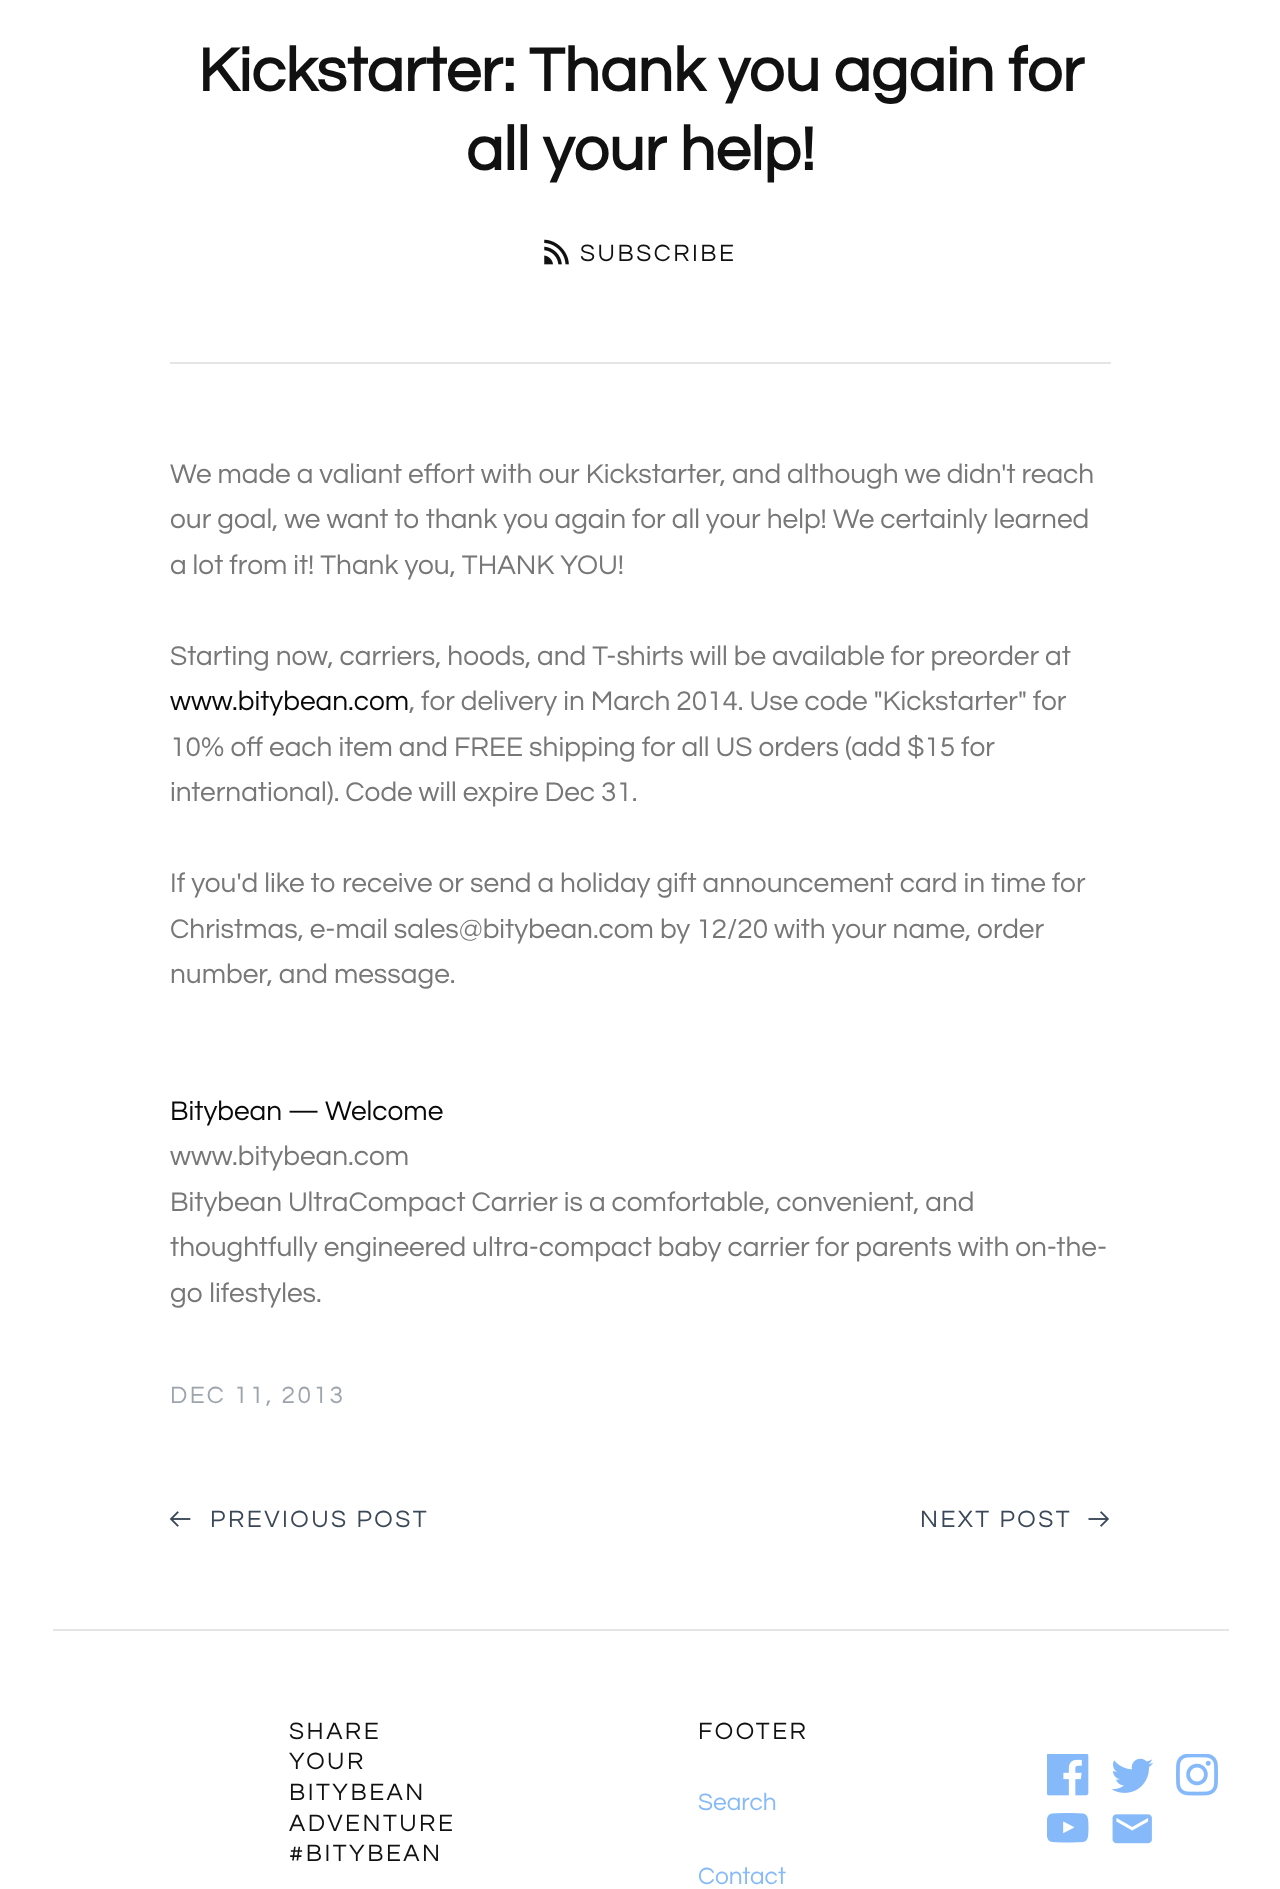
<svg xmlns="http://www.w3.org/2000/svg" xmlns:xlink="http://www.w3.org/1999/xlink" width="1280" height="1889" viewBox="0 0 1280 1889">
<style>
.cls-1{font:bold 63px Questrial;fill:#121111}
.cls-2{font:24.5px Questrial;letter-spacing:2.5px;fill:#121111}
.cls-3{font:28px Questrial;fill:#777777}
.cls-4{font:28px Questrial;fill:#09090a}
.cls-5{font:24.5px Questrial;letter-spacing:2.5px;fill:#9da4ac}
.cls-6{font:24.5px Questrial;letter-spacing:2.5px;fill:#3b4858}
.cls-7{font:24.5px Questrial;fill:#85b9fa}
</style>
<rect width="100%" height="100%" fill="#ffffff"/>
<image xlink:href="image0.png" x="544" y="239" width="25" height="26"/>
<rect fill="#e5e5e5" x="170" y="362" width="941" height="2"/>
<image xlink:href="image1.png" x="169" y="1511" width="22" height="16"/>
<image xlink:href="image2.png" x="1088" y="1511" width="21" height="16"/>
<rect fill="#e5e5e5" x="53" y="1629" width="1176" height="2"/>
<image xlink:href="image3.png" x="1047" y="1754" width="42" height="42"/>
<image xlink:href="image4.png" x="1111" y="1758" width="42" height="35"/>
<image xlink:href="image5.png" x="1176" y="1754" width="42" height="42"/>
<image xlink:href="image6.png" x="1047" y="1813" width="42" height="30"/>
<image xlink:href="image7.png" x="1112" y="1814" width="40" height="30"/>
<text class="cls-1" x="198" y="91">Kickstarter: Thank you again for</text>
<text class="cls-1" x="466" y="170">all your help!</text>
<text class="cls-2" x="580" y="261">SUBSCRIBE</text>
<text class="cls-3"><tspan x="170" y="483">We made a valiant effort with our Kickstarter, and although we didn't reach</tspan><tspan x="170" y="528">our goal, we want to thank you again for all your help! We certainly learned</tspan><tspan x="170" y="574">a lot from it! Thank you, THANK YOU!</tspan></text>
<text class="cls-3" x="170" y="665">Starting now, carriers, hoods, and T-shirts will be available for preorder at</text>
<text class="cls-4" x="170" y="710">www.bitybean.com</text>
<text class="cls-3" x="409" y="710">, for delivery in March 2014. Use code "Kickstarter" for</text>
<text class="cls-3"><tspan x="170" y="756">10% off each item and FREE shipping for all US orders (add $15 for</tspan><tspan x="170" y="801">international). Code will expire Dec 31.</tspan></text>
<text class="cls-3"><tspan x="170" y="892">If you'd like to receive or send a holiday gift announcement card in time for</tspan><tspan x="170" y="938">Christmas, e-mail sales@bitybean.com by 12/20 with your name, order</tspan><tspan x="170" y="983">number, and message.</tspan></text>
<text class="cls-4" x="170" y="1120">Bitybean — Welcome</text>
<text class="cls-3"><tspan x="170" y="1165">www.bitybean.com</tspan><tspan x="170" y="1211">Bitybean UltraCompact Carrier is a comfortable, convenient, and</tspan><tspan x="170" y="1256">thoughtfully engineered ultra-compact baby carrier for parents with on-the-</tspan><tspan x="170" y="1302">go lifestyles.</tspan></text>
<text class="cls-5" x="170" y="1403">DEC 11, 2013</text>
<text class="cls-6" x="210" y="1527">PREVIOUS POST</text>
<text class="cls-6" x="920" y="1527">NEXT POST</text>
<text class="cls-2"><tspan x="289" y="1739">SHARE</tspan><tspan x="289" y="1769">YOUR</tspan><tspan x="289" y="1800">BITYBEAN</tspan><tspan x="289" y="1831">ADVENTURE</tspan><tspan x="289" y="1861">#BITYBEAN</tspan></text>
<text class="cls-2" x="698" y="1739">FOOTER</text>
<text class="cls-7" x="698" y="1810">Search</text>
<text class="cls-7" x="698" y="1884">Contact</text>
</svg>
